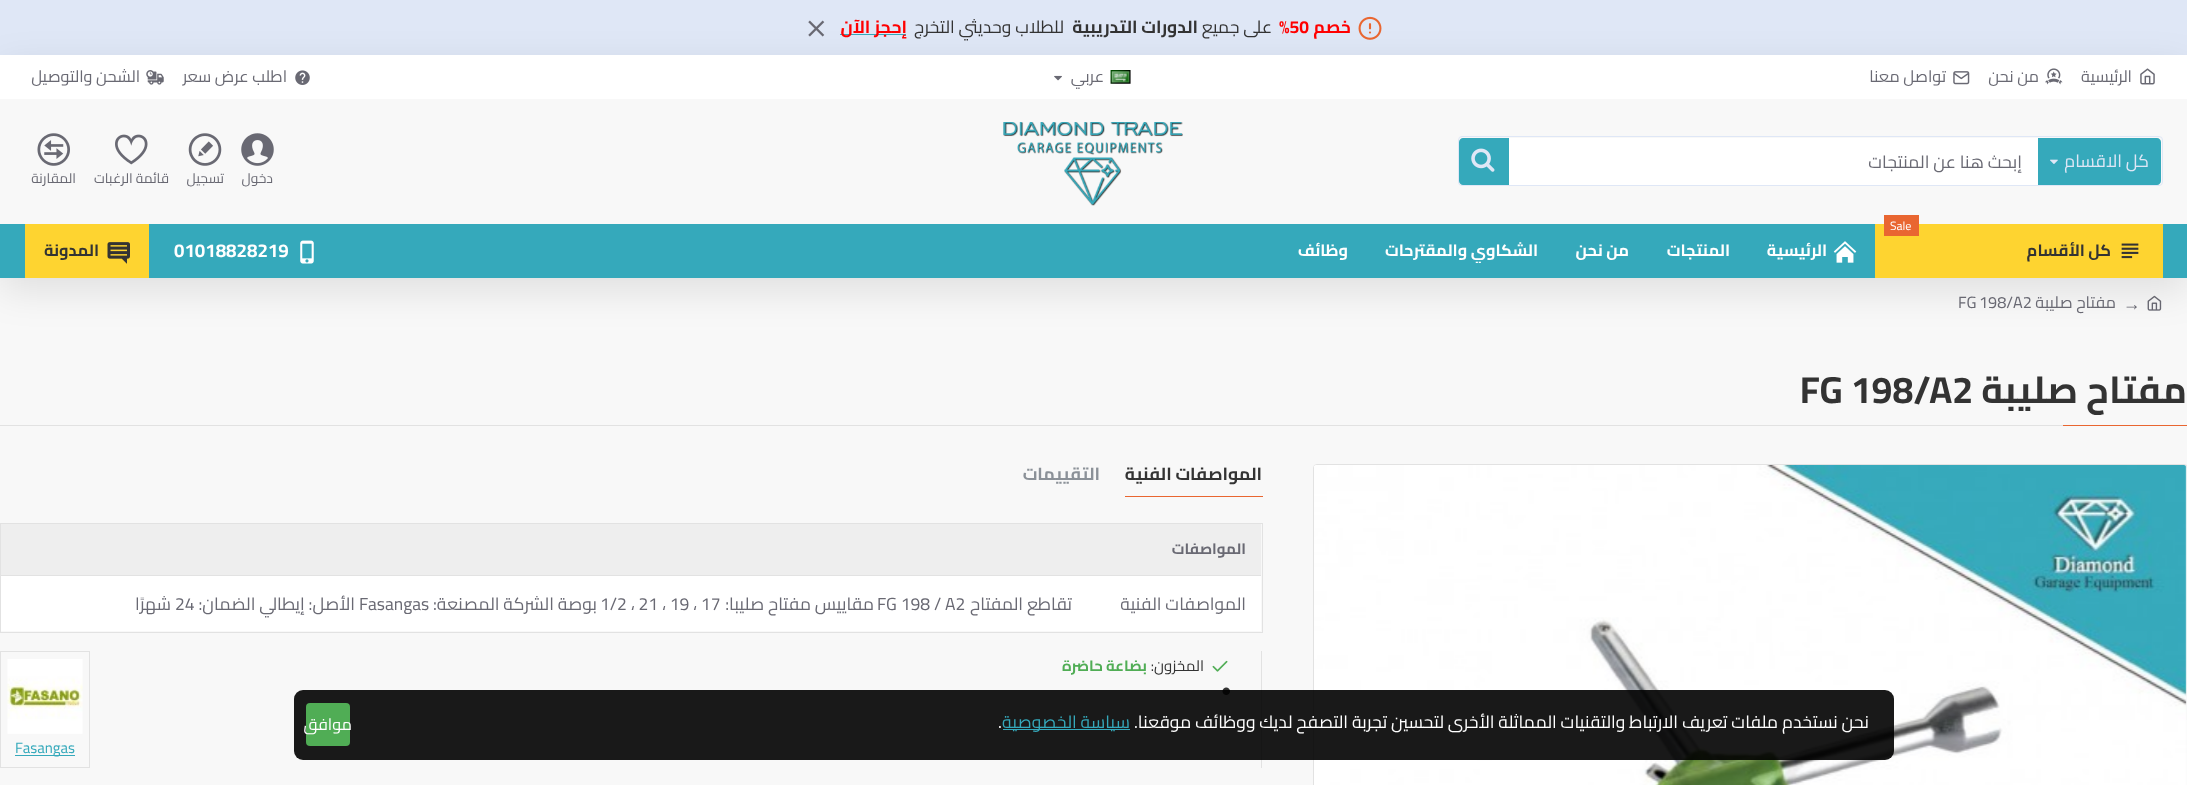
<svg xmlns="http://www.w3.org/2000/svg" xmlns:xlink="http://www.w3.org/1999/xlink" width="2187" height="785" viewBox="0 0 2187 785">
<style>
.cls-1{font:bold 17.5px Cairo;direction:rtl;fill:#ff0000}
.cls-2{font:bold 17.5px Cairo;fill:#ff0000}
.cls-3{font:17.5px Cairo;direction:rtl;fill:#333333}
.cls-4{font:bold 17.5px Cairo;direction:rtl;fill:#333333}
.cls-5{font:16.25px Cairo;direction:rtl;fill:#696973}
.cls-6{font:17.5px Cairo;direction:rtl;fill:#dfe7f6}
.cls-7{font:17.5px Cairo;direction:rtl;fill:#696973}
.cls-8{font:13.75px Cairo;direction:rtl;fill:#696973}
.cls-9{font:12px Cairo;fill:#ffffff}
.cls-10{font:bold 16.25px Cairo;direction:rtl;fill:#333333}
.cls-11{font:bold 16.25px Cairo;direction:rtl;fill:#ffffff}
.cls-12{font:bold 18.75px Cairo;fill:#ffffff}
.cls-13{font:17.5px Liberation Serif;fill:#696973}
.cls-14{font:16.25px Cairo;fill:#696973}
.cls-15{font:bold 37.5px Cairo;direction:rtl;fill:#333333}
.cls-16{font:bold 37.5px Cairo;fill:#333333}
.cls-17{font:bold 17.5px Cairo;direction:rtl;fill:#8b9198}
.cls-18{font:bold 15px Cairo;direction:rtl;fill:#696973}
.cls-19{font:17.5px Cairo;fill:#696973}
.cls-20{font:15px Cairo;direction:rtl;fill:#333333}
.cls-21{font:bold 15px Cairo;direction:rtl;fill:#50ad55}
.cls-22{font:15px Cairo;fill:#35a9bb}
.cls-23{font:17.5px Cairo;direction:rtl;fill:#ffffff}
.cls-24{font:17.5px Cairo;direction:rtl;fill:#35a9bb}
.cls-25{font:17.5px Cairo;fill:#ffffff}
.cls-26{font:16.25px Cairo;direction:rtl;fill:#ffffff}
</style>
<defs>
<clipPath id="clip1"><path d="M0 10H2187V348H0ZM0 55H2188V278H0Z" clip-rule="evenodd"/></clipPath>
<clipPath id="clip2"><rect x="1385" y="239" width="154" height="24"/></clipPath>
</defs>
<rect width="100%" height="100%" fill="#f8f8f8"/>
<rect fill="#dfe7f6" x="0" y="0" width="2187" height="55"/>
<image xlink:href="image0.png" x="1358" y="16" width="24" height="24"/>
<rect fill="#35a9bb" x="840" y="34" width="66" height="1"/>
<image xlink:href="image1.png" x="808" y="20" width="17" height="17"/>
<image xlink:href="image20.png" x="2147" y="295" width="15" height="16"/>
<g clip-path="url(#clip1)">
<rect fill="#000000" fill-opacity="0.1" filter="blur(19px)" x="0" y="68" width="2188" height="222"/>
</g>
<rect fill="#ffffff" x="0" y="55" width="2187" height="44"/>
<image xlink:href="image2.png" x="2140" y="68" width="15" height="17"/>
<image xlink:href="image3.png" x="2045" y="68" width="18" height="17"/>
<image xlink:href="image4.png" x="1953" y="71" width="17" height="14"/>
<image xlink:href="image5.png" x="1110" y="70" width="21" height="14"/>
<image xlink:href="image6.png" x="1054" y="75" width="8" height="6"/>
<image xlink:href="image7.png" x="295" y="70" width="15" height="15"/>
<image xlink:href="image8.png" x="146" y="70" width="18" height="15"/>
<rect fill="none" stroke="#dfe7f6" x="1458.5" y="136.5" width="704" height="49" rx="3.5"/>
<path fill="#35a9bb" d="M2038 138H2157C2159 138 2161 140 2161 142V181C2161 183 2159 185 2157 185H2038Z"/>
<image xlink:href="image9.png" x="2050" y="159" width="8" height="5"/>
<rect fill="#ffffff" x="1509" y="138" width="529" height="47"/>
<path fill="#35a9bb" d="M1463 138H1509V185H1463C1461 185 1459 183 1459 181V142C1459 140 1461 138 1463 138Z"/>
<image xlink:href="image10.png" x="1471" y="148" width="24" height="24"/>
<image xlink:href="image11.png" x="1003" y="122" width="180" height="84"/>
<image xlink:href="image12.png" x="241" y="133" width="33" height="33"/>
<image xlink:href="image13.png" x="188" y="133" width="34" height="33"/>
<image xlink:href="image14.png" x="115" y="134" width="33" height="31"/>
<image xlink:href="image15.png" x="37" y="133" width="33" height="33"/>
<rect fill="#35a9bb" x="0" y="224" width="2187" height="54"/>
<rect fill="#fed430" x="1875" y="224" width="288" height="54"/>
<rect fill="#e96631" x="1884" y="215" width="35" height="21"/>
<image xlink:href="image16.png" x="2121" y="243" width="18" height="16"/>
<image xlink:href="image17.png" x="1833" y="241" width="24" height="22"/>
<image xlink:href="image18.png" x="300" y="240" width="14" height="24"/>
<rect fill="#fed430" x="25" y="224" width="124" height="54"/>
<image xlink:href="image19.png" x="107" y="242" width="23" height="22"/>
<rect fill="#e2e2e2" x="0" y="425" width="2063" height="1"/>
<rect fill="#e96631" x="2063" y="425" width="124" height="1"/>
<rect fill="none" stroke="#e2e2e2" x="1313.5" y="464.5" width="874" height="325" rx="3.5"/>
<image xlink:href="image21.png" x="1314" y="465" width="873" height="320"/>
<rect fill="#e96631" x="1125" y="496" width="138" height="1"/>
<rect fill="none" stroke="#e2e2e2" x="0.5" y="523.5" width="1262" height="109"/>
<rect fill="#eeeeee" x="1" y="524" width="1260" height="51"/>
<rect fill="#e2e2e2" x="1" y="575" width="1260" height="1"/>
<rect fill="#ffffff" x="1" y="576" width="1260" height="55"/>
<rect fill="#e2e2e2" x="1261" y="651" width="1" height="117"/>
<image xlink:href="image22.png" x="1212" y="660" width="16" height="12"/>
<image xlink:href="image23.png" x="1222" y="687" width="8" height="8"/>
<rect fill="none" stroke="#e2e2e2" x="0.5" y="651.5" width="89" height="116"/>
<image xlink:href="image24.png" x="7" y="659" width="76" height="75"/>
<rect fill="#35a9bb" x="15" y="755" width="60" height="1"/>
<rect fill="#000000" fill-opacity="0.9" x="294" y="690" width="1600" height="70" rx="9"/>
<rect fill="#35a9bb" x="1003" y="729" width="127" height="1"/>
<rect fill="#50ad55" x="306" y="703" width="44" height="43" rx="4"/>
<text class="cls-1" x="1351" y="33">خصم</text>
<text class="cls-2" x="1279" y="33">%50</text>
<text class="cls-3" x="1272" y="33">على جميع</text>
<text class="cls-4" x="1198" y="33">الدورات التدريبية</text>
<text class="cls-3" x="1064" y="33">للطلاب وحديثي التخرج</text>
<text class="cls-1" x="907" y="33">إحجز الآن</text>
<text class="cls-5" x="2132" y="82">الرئيسية</text>
<text class="cls-5" x="2039" y="82">من نحن</text>
<text class="cls-5" x="1946" y="82">تواصل معنا</text>
<text class="cls-5" x="1104" y="82">عربي</text>
<text class="cls-5" x="287" y="82">اطلب عرض سعر</text>
<text class="cls-5" x="140" y="82">الشحن والتوصيل</text>
<text class="cls-6" x="2149" y="167">كل الاقسام</text>
<text class="cls-7" x="2022" y="168">إبحث هنا عن المنتجات</text>
<text class="cls-8" x="273" y="183">دخول</text>
<text class="cls-8" x="224" y="183">تسجيل</text>
<text class="cls-8" x="169" y="183">قائمة الرغبات</text>
<text class="cls-8" x="76" y="183">المقارنة</text>
<text class="cls-9" x="1890" y="230">Sale</text>
<text class="cls-10" x="2111" y="256">كل الأقسام</text>
<text class="cls-11" x="1827" y="256">الرئيسية</text>
<text class="cls-11" x="1730" y="256">المنتجات</text>
<text class="cls-11" x="1629" y="256">من نحن</text>
<g clip-path="url(#clip2)">
<text class="cls-11" x="1538" y="256">الشكاوي والمقترحات</text>
</g>
<text class="cls-11" x="1348" y="256">وظائف</text>
<text class="cls-12" x="174" y="257">01018828219</text>
<text class="cls-10" x="99" y="256">المدونة</text>
<text class="cls-13" x="2123" y="310">→</text>
<text class="cls-5" x="2116" y="308">مفتاح صليبة</text>
<text class="cls-14" x="1958" y="308" word-spacing="-1">FG 198/A2</text>
<text class="cls-15" x="2187" y="403">مفتاح صليبة</text>
<text class="cls-16" x="1800" y="403">FG 198/A2</text>
<text class="cls-4" x="1262" y="480">المواصفات الفنية</text>
<text class="cls-17" x="1100" y="480">التقييمات</text>
<text class="cls-18" x="1246" y="554">المواصفات</text>
<text class="cls-7" x="1246" y="610">المواصفات الفنية</text>
<text class="cls-7" x="1072" y="610">تقاطع المفتاح</text>
<text class="cls-19" x="877" y="610">FG 198 / A2</text>
<text class="cls-7" x="874" y="610">مقاييس مفتاح صليبا:</text>
<text class="cls-19" x="600" y="610">1/2 ، 21 ، 19 ، 17</text>
<text class="cls-7" x="597" y="610">بوصة الشركة المصنعة:</text>
<text class="cls-19" x="359" y="610">Fasangas</text>
<text class="cls-7" x="355" y="610">الأصل: إيطالي الضمان:</text>
<text class="cls-19" x="175" y="610">24</text>
<text class="cls-7" x="171" y="610">شهرًا</text>
<text class="cls-20" x="1204" y="671">المخزون:</text>
<text class="cls-21" x="1147" y="671">بضاعة حاضرة</text>
<text class="cls-22" x="15" y="753">Fasangas</text>
<text class="cls-23" x="1869" y="728">نحن نستخدم ملفات تعريف الارتباط والتقنيات المماثلة الأخرى لتحسين تجربة التصفح لديك ووظائف موقعنا.</text>
<text class="cls-24" x="1130" y="728">سياسة الخصوصية</text>
<text class="cls-25" x="998" y="728">.</text>
<text class="cls-26" x="352" y="730">موافق</text>
</svg>
